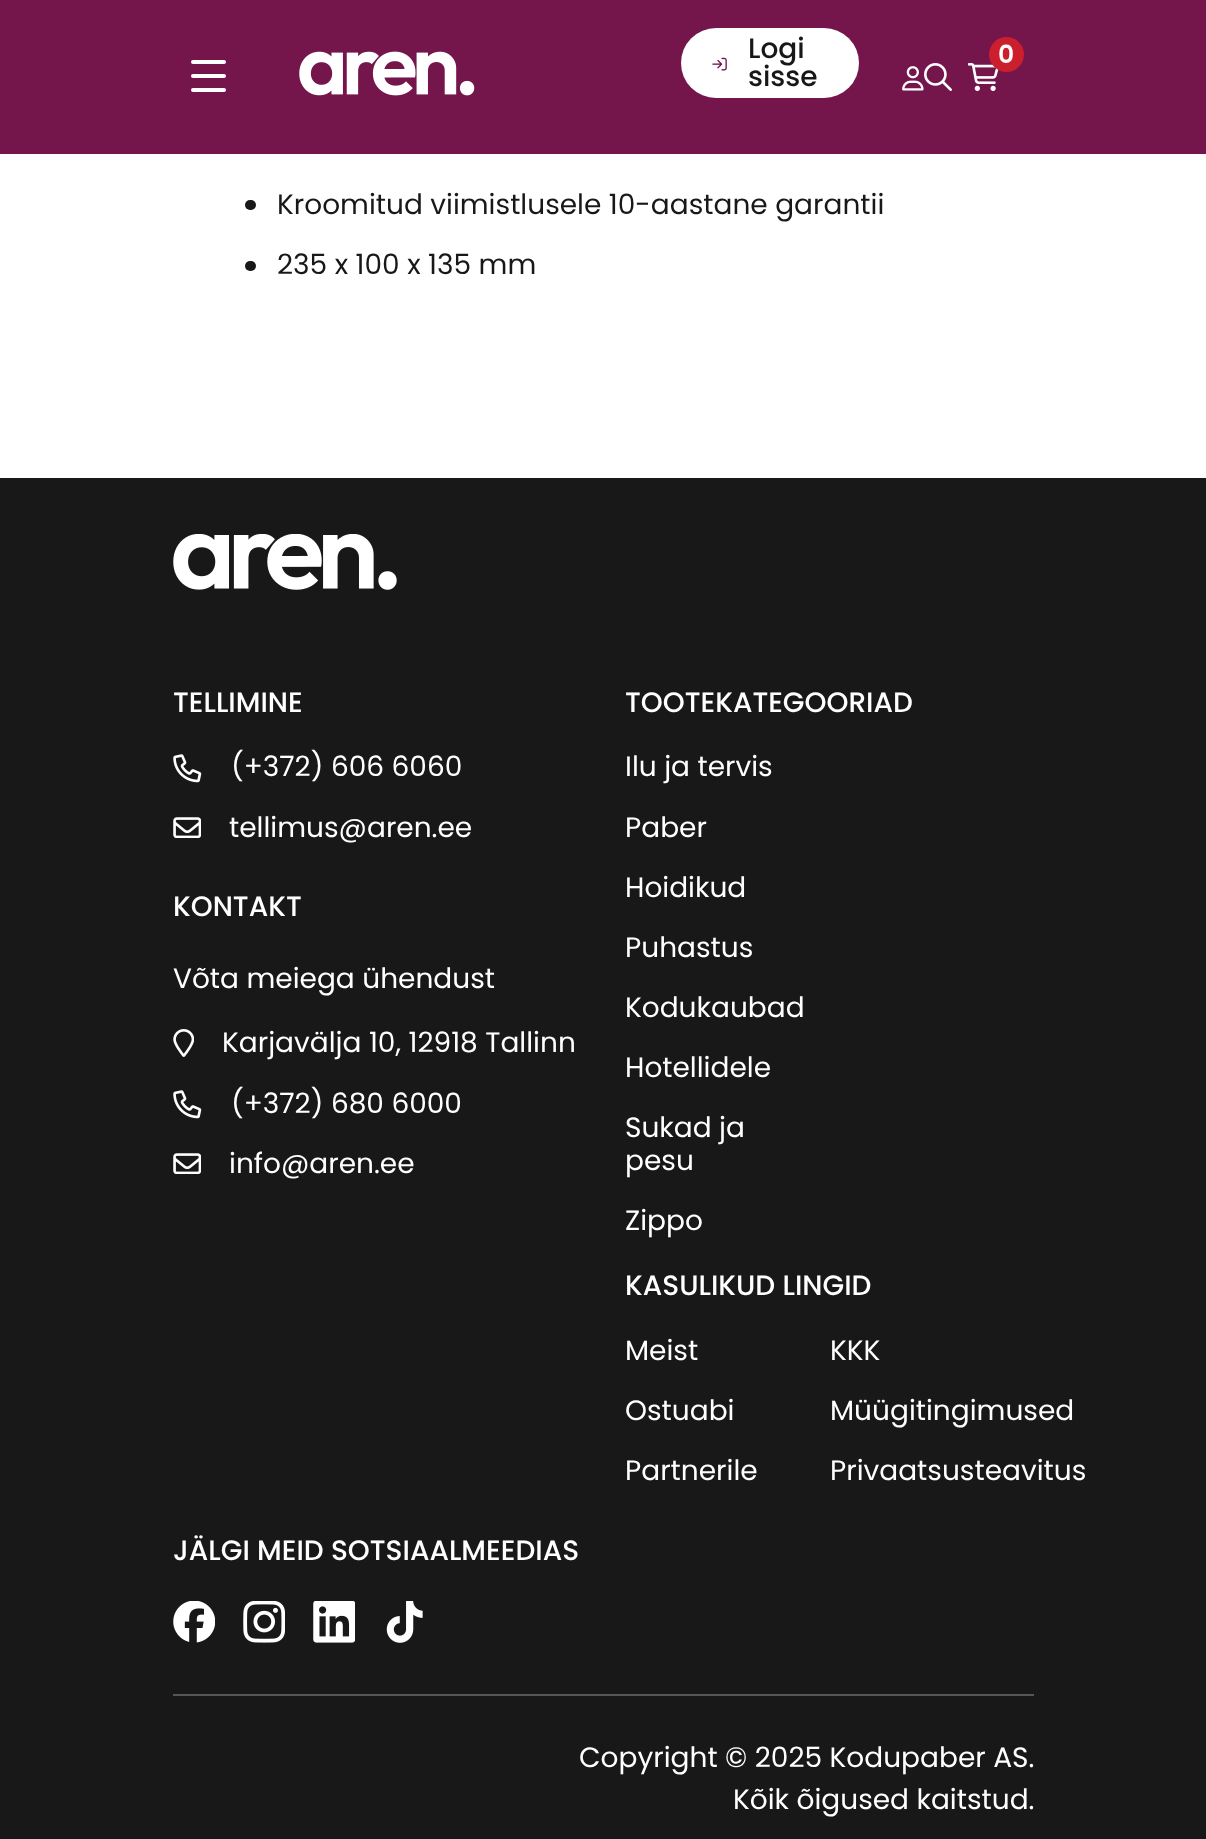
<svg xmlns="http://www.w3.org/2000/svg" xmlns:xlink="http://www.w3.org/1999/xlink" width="1206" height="1839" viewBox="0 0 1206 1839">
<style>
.cls-1{font:500 28px Poppins;fill:#181818}
.cls-2{font:600 25px Poppins;fill:#ffffff}
.cls-3{font:28px Poppins;fill:#181818}
.cls-4{font:500 28px Poppins;fill:#ffffff}
.cls-5{font:28px Poppins;fill:#ffffff}
</style>
<rect width="100%" height="100%" fill="#ffffff"/>
<rect fill="#74154c" x="0" y="0" width="1206" height="154"/>
<rect fill="#ffffff" x="191" y="60" width="35" height="4" rx="2"/>
<rect fill="#ffffff" x="191" y="74" width="35" height="4" rx="2"/>
<rect fill="#ffffff" x="191" y="88" width="35" height="4" rx="2"/>
<image xlink:href="image0.png" x="299" y="51" width="176" height="45"/>
<rect fill="#ffffff" x="681" y="28" width="178" height="70" rx="35"/>
<image xlink:href="image1.png" x="712" y="57" width="15" height="14"/>
<image xlink:href="image2.png" x="968" y="63" width="31" height="28"/>
<circle fill="#cc1f2e" cx="1006.5" cy="54.5" r="17.5"/>
<image xlink:href="image3.png" x="902" y="66" width="22" height="25"/>
<image xlink:href="image4.png" x="924" y="63" width="28" height="28"/>
<rect fill="#181818" x="245" y="200" width="11" height="10" rx="5"/>
<rect fill="#181818" x="245" y="261" width="11" height="10" rx="5"/>
<rect fill="#181818" x="0" y="478" width="1206" height="1361"/>
<image xlink:href="image5.png" x="173" y="534" width="224" height="56"/>
<image xlink:href="image6.png" x="173" y="754" width="29" height="29"/>
<image xlink:href="image7.png" x="173" y="817" width="28" height="21"/>
<image xlink:href="image8.png" x="173" y="1029" width="21" height="28"/>
<image xlink:href="image6.png" x="173" y="1090" width="29" height="29"/>
<image xlink:href="image7.png" x="173" y="1153" width="28" height="21"/>
<image xlink:href="image9.png" x="173" y="1601" width="42" height="42"/>
<image xlink:href="image10.png" x="243" y="1601" width="42" height="42"/>
<image xlink:href="image11.png" x="313" y="1601" width="42" height="42"/>
<image xlink:href="image12.png" x="386" y="1601" width="37" height="42"/>
<rect fill="#565656" x="173" y="1694" width="861" height="2"/>
<text class="cls-1"><tspan x="748" y="58">Logi</tspan><tspan x="748" y="86">sisse</tspan></text>
<text class="cls-2" x="998" y="63">0</text>
<text class="cls-3" x="277" y="214">Kroomitud viimistlusele 10-aastane garantii</text>
<text class="cls-3" x="277" y="274">235 x 100 x 135 mm</text>
<text class="cls-4" x="173" y="712">TELLIMINE</text>
<text class="cls-5" x="231" y="776">(+372) 606 6060</text>
<text class="cls-5" x="229" y="837">tellimus@aren.ee</text>
<text class="cls-4" x="173" y="916">KONTAKT</text>
<text class="cls-5" x="173" y="988">Võta meiega ühendust</text>
<text class="cls-5" x="222" y="1052">Karjavälja 10, 12918 Tallinn</text>
<text class="cls-5" x="231" y="1113">(+372) 680 6000</text>
<text class="cls-5" x="229" y="1173">info@aren.ee</text>
<text class="cls-4" x="625" y="712">TOOTEKATEGOORIAD</text>
<text class="cls-5" x="625" y="776">Ilu ja tervis</text>
<text class="cls-5" x="625" y="837">Paber</text>
<text class="cls-5" x="625" y="897">Hoidikud</text>
<text class="cls-5" x="625" y="957">Puhastus</text>
<text class="cls-5" x="625" y="1017">Kodukaubad</text>
<text class="cls-5" x="625" y="1077">Hotellidele</text>
<text class="cls-5"><tspan x="625" y="1137">Sukad ja</tspan><tspan x="625" y="1170">pesu</tspan></text>
<text class="cls-5" x="625" y="1230">Zippo</text>
<text class="cls-4" x="625" y="1295">KASULIKUD LINGID</text>
<text class="cls-5" x="625" y="1360">Meist</text>
<text class="cls-5" x="830" y="1360">KKK</text>
<text class="cls-5" x="625" y="1420">Ostuabi</text>
<text class="cls-5" x="830" y="1420">Müügitingimused</text>
<text class="cls-5" x="625" y="1480">Partnerile</text>
<text class="cls-5" x="830" y="1480">Privaatsusteavitus</text>
<text class="cls-4" x="173" y="1560">JÄLGI MEID SOTSIAALMEEDIAS</text>
<text class="cls-5" x="579" y="1767">Copyright © 2025 Kodupaber AS.</text>
<text class="cls-5" x="733" y="1809">Kõik õigused kaitstud.</text>
</svg>
